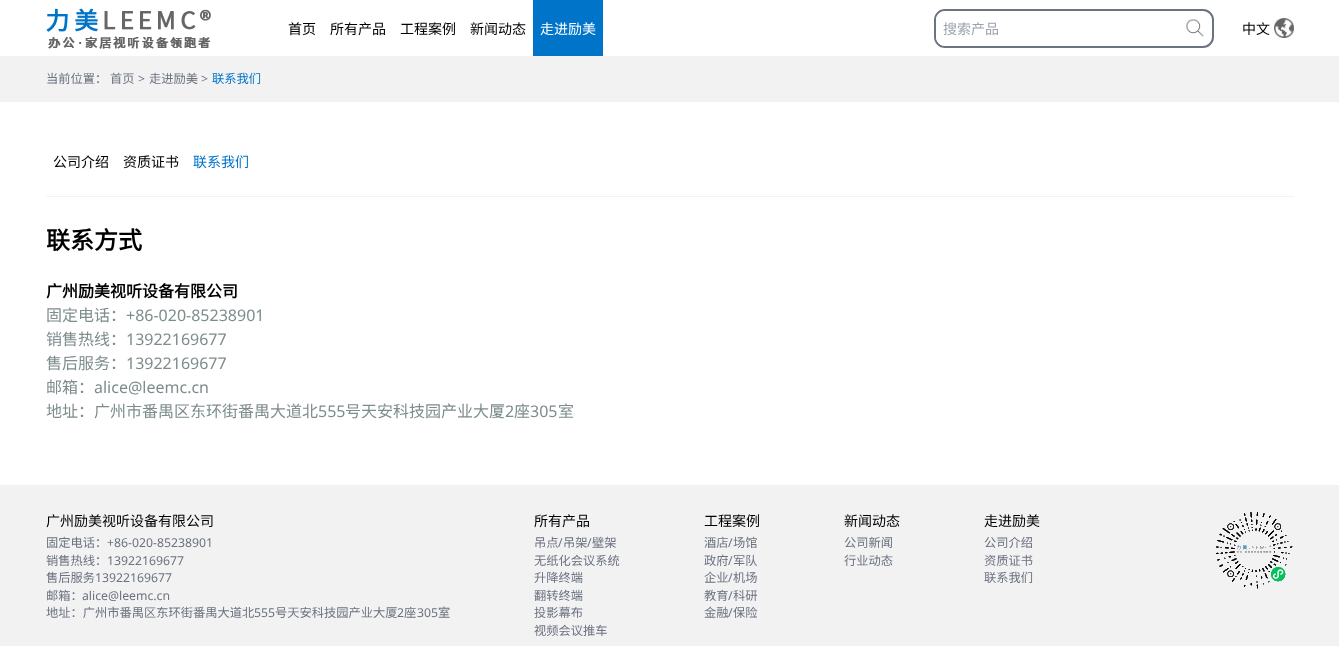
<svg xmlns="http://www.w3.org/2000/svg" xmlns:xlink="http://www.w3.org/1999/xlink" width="1339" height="646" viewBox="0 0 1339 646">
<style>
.cls-1{font:14px Noto Sans CJK SC;fill:#000000}
.cls-2{font:14px Noto Sans CJK SC;fill:#ffffff}
.cls-3{font:14px Noto Sans CJK SC;fill:#9ca3af}
.cls-4{font:12.25px Noto Sans CJK SC;fill:#6b7280}
.cls-5{font:12.25px Noto Sans;fill:#6b7280}
.cls-6{font:12.25px Noto Sans CJK SC;fill:#0074c8}
.cls-7{font:14px Noto Sans CJK SC;fill:#0074c8}
.cls-8{font:bold 24px Noto Sans CJK SC;fill:#000000}
.cls-9{font:bold 16px Noto Sans CJK SC;fill:#000000}
.cls-10{font:16px Noto Sans CJK SC;fill:#7e8c8d}
.cls-11{font:16px Noto Sans;fill:#7e8c8d}
</style>
<rect width="100%" height="100%" fill="#ffffff"/>
<image xlink:href="image0.png" x="46" y="8" width="165" height="41"/>
<rect fill="#0074c8" x="533" y="0" width="70" height="56"/>
<rect fill="none" stroke="#6b7280" stroke-width="2" x="935" y="10" width="278" height="37" rx="10"/>
<path fill="#ffffff" d="M945 11H1185V46H945C940 46 936 42 936 37V20C936 15 940 11 945 11Z"/>
<image xlink:href="image1.png" x="1186" y="19" width="18" height="18"/>
<image xlink:href="image2.png" x="1274" y="18" width="20" height="20"/>
<rect fill="#f2f2f2" x="0" y="56" width="1339" height="46"/>
<rect fill="#f2f2f2" x="46" y="196" width="1248" height="1"/>
<rect fill="#f2f2f2" x="0" y="485" width="1339" height="161"/>
<image xlink:href="image3.png" x="1216" y="512" width="77" height="77"/>
<text class="cls-1" x="288" y="34">首页</text>
<text class="cls-1" x="330" y="34">所有产品</text>
<text class="cls-1" x="400" y="34">工程案例</text>
<text class="cls-1" x="470" y="34">新闻动态</text>
<text class="cls-2" x="540" y="34">走进励美</text>
<text class="cls-3" x="943" y="34">搜索产品</text>
<text class="cls-1" x="1242" y="34">中文</text>
<text class="cls-4" x="46" y="83">当前位置：</text>
<text class="cls-4" x="110" y="83">首页</text>
<text class="cls-5" x="138" y="83">&gt;</text>
<text class="cls-4" x="149" y="83">走进励美</text>
<text class="cls-5" x="201" y="83">&gt;</text>
<text class="cls-6" x="212" y="83">联系我们</text>
<text class="cls-1" x="53" y="167">公司介绍</text>
<text class="cls-1" x="123" y="167">资质证书</text>
<text class="cls-7" x="193" y="167">联系我们</text>
<text class="cls-8" x="46" y="249">联系方式</text>
<text class="cls-9" x="46" y="297">广州励美视听设备有限公司</text>
<text class="cls-10" x="46" y="321">固定电话：</text>
<text class="cls-11" x="126" y="321">+86-020-85238901</text>
<text class="cls-10" x="46" y="345">销售热线：</text>
<text class="cls-11" x="126" y="345">13922169677</text>
<text class="cls-10" x="46" y="369">售后服务：</text>
<text class="cls-11" x="126" y="369">13922169677</text>
<text class="cls-10" x="46" y="393">邮箱：</text>
<text class="cls-11" x="94" y="393">alice@leemc.cn</text>
<text class="cls-10" x="46" y="417">地址：广州市番禺区东环街番禺大道北</text>
<text class="cls-11" x="318" y="417">555</text>
<text class="cls-10" x="345" y="417">号天安科技园产业大厦</text>
<text class="cls-11" x="505" y="417">2</text>
<text class="cls-10" x="514" y="417">座</text>
<text class="cls-11" x="530" y="417">305</text>
<text class="cls-10" x="558" y="417">室</text>
<text class="cls-1" x="46" y="526">广州励美视听设备有限公司</text>
<text class="cls-4" x="46" y="547">固定电话：</text>
<text class="cls-5" x="107" y="547">+86-020-85238901</text>
<text class="cls-4" x="46" y="565">销售热线：</text>
<text class="cls-5" x="107" y="565">13922169677</text>
<text class="cls-4" x="46" y="582">售后服务</text>
<text class="cls-5" x="95" y="582">13922169677</text>
<text class="cls-4" x="46" y="600">邮箱：</text>
<text class="cls-5" x="82" y="600">alice@leemc.cn</text>
<text class="cls-4" x="46" y="617">地址：广州市番禺区东环街番禺大道北</text>
<text class="cls-5" x="254" y="617">555</text>
<text class="cls-4" x="275" y="617">号天安科技园产业大厦</text>
<text class="cls-5" x="397" y="617">2</text>
<text class="cls-4" x="404" y="617">座</text>
<text class="cls-5" x="417" y="617">305</text>
<text class="cls-4" x="438" y="617">室</text>
<text class="cls-1" x="534" y="526">所有产品</text>
<text class="cls-4" x="534" y="547">吊点</text>
<text class="cls-5" x="558" y="547">/</text>
<text class="cls-4" x="563" y="547">吊架</text>
<text class="cls-5" x="587" y="547">/</text>
<text class="cls-4" x="592" y="547">壁架</text>
<text class="cls-4"><tspan x="534" y="565">无纸化会议系统</tspan><tspan x="534" y="582">升降终端</tspan><tspan x="534" y="600">翻转终端</tspan><tspan x="534" y="617">投影幕布</tspan><tspan x="534" y="635">视频会议推车</tspan></text>
<text class="cls-1" x="704" y="526">工程案例</text>
<text class="cls-4" x="704" y="547">酒店</text>
<text class="cls-5" x="728" y="547">/</text>
<text class="cls-4" x="733" y="547">场馆</text>
<text class="cls-4" x="704" y="565">政府</text>
<text class="cls-5" x="728" y="565">/</text>
<text class="cls-4" x="733" y="565">军队</text>
<text class="cls-4" x="704" y="582">企业</text>
<text class="cls-5" x="728" y="582">/</text>
<text class="cls-4" x="733" y="582">机场</text>
<text class="cls-4" x="704" y="600">教育</text>
<text class="cls-5" x="728" y="600">/</text>
<text class="cls-4" x="733" y="600">科研</text>
<text class="cls-4" x="704" y="617">金融</text>
<text class="cls-5" x="728" y="617">/</text>
<text class="cls-4" x="733" y="617">保险</text>
<text class="cls-1" x="844" y="526">新闻动态</text>
<text class="cls-4"><tspan x="844" y="547">公司新闻</tspan><tspan x="844" y="565">行业动态</tspan></text>
<text class="cls-1" x="984" y="526">走进励美</text>
<text class="cls-4"><tspan x="984" y="547">公司介绍</tspan><tspan x="984" y="565">资质证书</tspan><tspan x="984" y="582">联系我们</tspan></text>
</svg>
